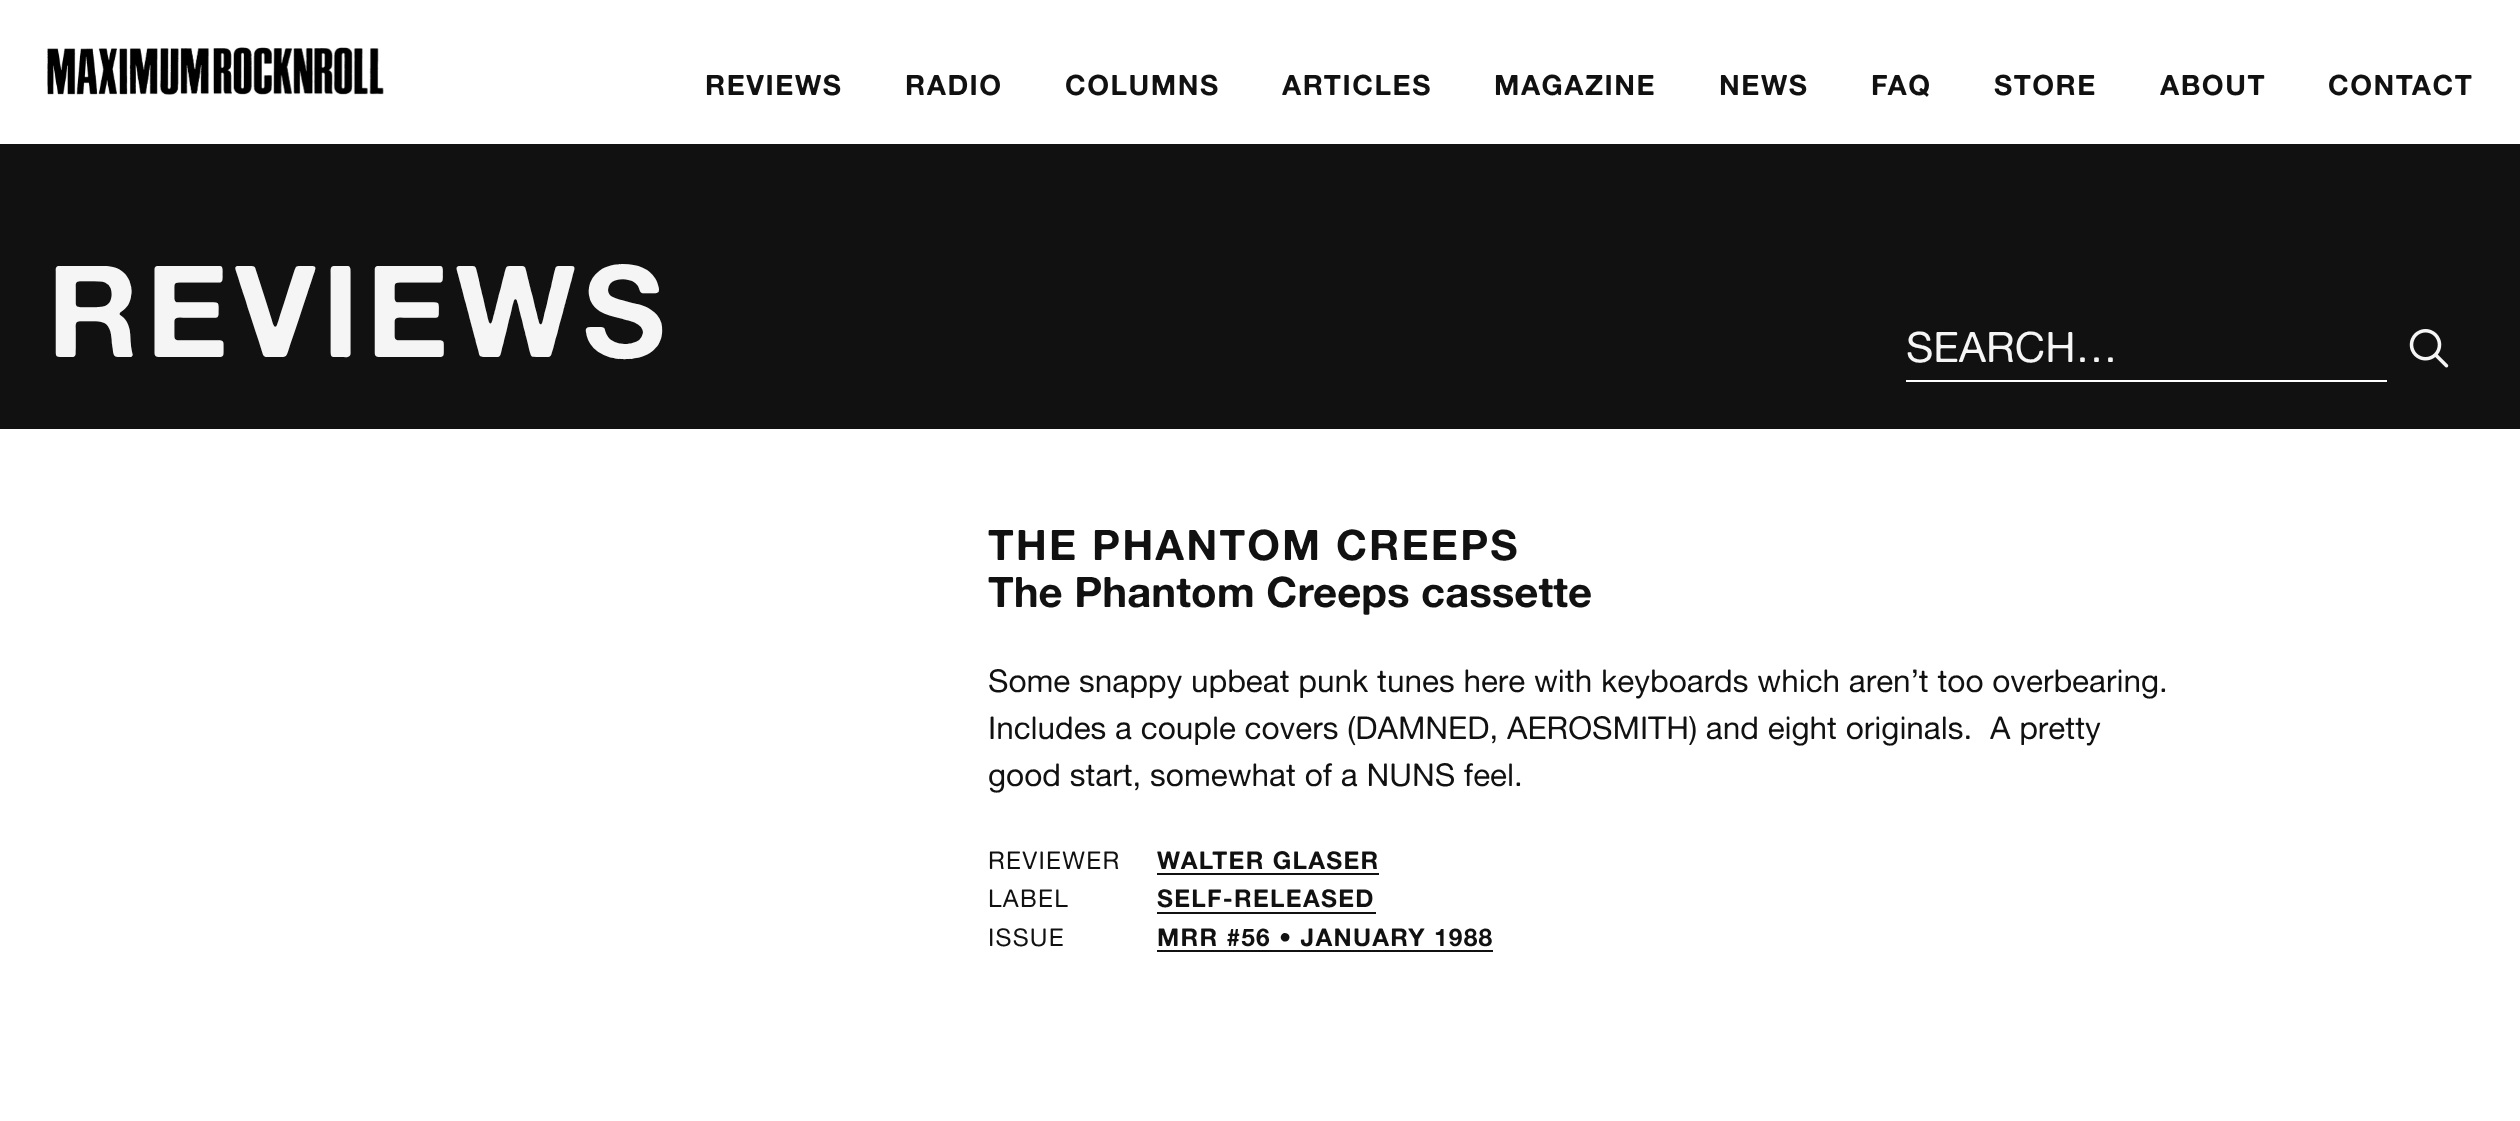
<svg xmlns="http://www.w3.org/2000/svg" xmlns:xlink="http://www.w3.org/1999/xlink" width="2520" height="1121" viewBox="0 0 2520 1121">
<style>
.cls-1{font:bold 28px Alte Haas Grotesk;letter-spacing:1.5px;fill:#111111}
.cls-2{font:bold 127.75px Alte Haas Grotesk;letter-spacing:6.5px;fill:#f5f5f5}
.cls-3{font:42px Alte Haas Grotesk;fill:#f5f5f5}
.cls-4{font:bold 42px Alte Haas Grotesk;letter-spacing:2.1px;fill:#111111}
.cls-5{font:bold 42px Alte Haas Grotesk;fill:#111111}
.cls-6{font:31.5px Alte Haas Grotesk;fill:#111111}
.cls-7{font:24.5px Alte Haas Grotesk;letter-spacing:1.25px;fill:#111111}
.cls-8{font:bold 24.5px Alte Haas Grotesk;letter-spacing:1.25px;fill:#111111}
</style>
<rect width="100%" height="100%" fill="#ffffff"/>
<image xlink:href="image0.png" x="47" y="47" width="337" height="48"/>
<rect fill="#111111" x="0" y="144" width="2520" height="285"/>
<rect fill="#ffffff" x="1906" y="380" width="481" height="2"/>
<image xlink:href="image1.png" x="2409" y="329" width="40" height="39"/>
<rect fill="#111111" x="1157" y="873" width="222" height="2"/>
<rect fill="#111111" x="1157" y="912" width="219" height="2"/>
<rect fill="#111111" x="1157" y="950" width="336" height="2"/>
<text class="cls-1" x="705" y="95">REVIEWS</text>
<text class="cls-1" x="905" y="95">RADIO</text>
<text class="cls-1" x="1065" y="95">COLUMNS</text>
<text class="cls-1" x="1282" y="95">ARTICLES</text>
<text class="cls-1" x="1494" y="95">MAGAZINE</text>
<text class="cls-1" x="1719" y="95">NEWS</text>
<text class="cls-1" x="1871" y="95">FAQ</text>
<text class="cls-1" x="1994" y="95">STORE</text>
<text class="cls-1" x="2160" y="95">ABOUT</text>
<text class="cls-1" x="2328" y="95">CONTACT</text>
<text class="cls-2" x="47" y="357">REVIEWS</text>
<text class="cls-3" x="1906" y="362">SEARCH…</text>
<text class="cls-4" x="988" y="560">THE PHANTOM CREEPS</text>
<text class="cls-5" x="988" y="607">The Phantom Creeps cassette</text>
<text class="cls-6"><tspan x="988" y="692">Some snappy upbeat punk tunes here with keyboards which aren’t too overbearing.</tspan><tspan x="988" y="739">Includes a couple covers (DAMNED, AEROSMITH) and eight originals.</tspan></text>
<text class="cls-6" x="1990" y="739">A pretty</text>
<text class="cls-6" x="988" y="786">good start, somewhat of a NUNS feel.</text>
<text class="cls-7" x="988" y="869">REVIEWER</text>
<text class="cls-8" x="1157" y="869">WALTER GLASER</text>
<text class="cls-7" x="988" y="907">LABEL</text>
<text class="cls-8" x="1157" y="907">SELF-RELEASED</text>
<text class="cls-7" x="988" y="946">ISSUE</text>
<text class="cls-8" x="1157" y="946">MRR #56 • JANUARY 1988</text>
</svg>
